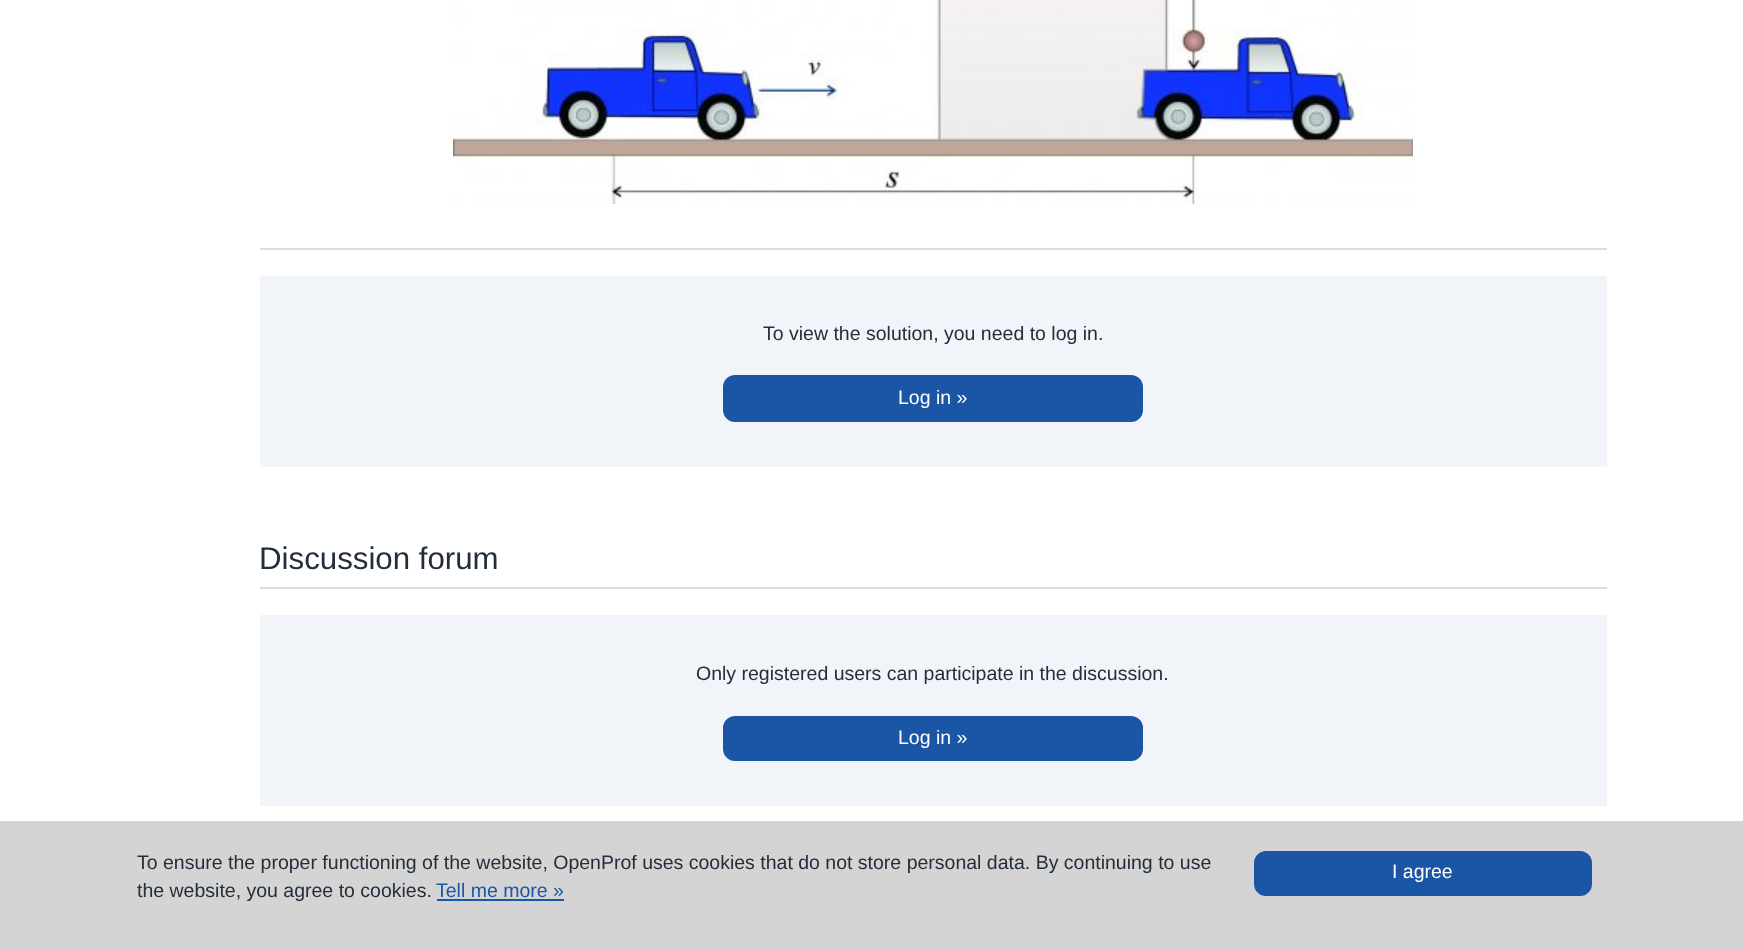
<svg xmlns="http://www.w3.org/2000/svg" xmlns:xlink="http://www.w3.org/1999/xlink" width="1743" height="949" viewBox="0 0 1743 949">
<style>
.cls-1{font:19.5px Liberation Sans;fill:#232e3b}
.cls-2{font:19.5px Liberation Sans;fill:#ffffff}
.cls-3{font:31.25px Liberation Sans;fill:#232e3b}
.cls-4{font:19.5px Liberation Sans;fill:#1a56a5}
</style>
<rect width="100%" height="100%" fill="#ffffff"/>
<image xlink:href="image0.png" x="453" y="0" width="960" height="204"/>
<rect fill="#d8dee6" x="260" y="248" width="1347" height="2"/>
<rect fill="#f1f4f8" x="260" y="276" width="1347" height="191"/>
<rect fill="#1a56a5" stroke="#1a56a5" stroke-width="2" x="724" y="376" width="418" height="45" rx="11"/>
<rect fill="#d8dee6" x="260" y="587" width="1347" height="2"/>
<rect fill="#f1f4f8" x="260" y="615" width="1347" height="191"/>
<rect fill="#1a56a5" stroke="#1a56a5" stroke-width="2" x="724" y="717" width="418" height="43" rx="11"/>
<rect fill="#d4d4d4" x="0" y="821" width="1743" height="128"/>
<rect fill="#1a56a5" x="437" y="899" width="127" height="2"/>
<rect fill="#1a56a5" stroke="#1a56a5" stroke-width="2" x="1255" y="852" width="336" height="43" rx="11"/>
<text class="cls-1" x="763" y="340">To view the solution, you need to log in.</text>
<text class="cls-2" x="898" y="404">Log in »</text>
<text class="cls-3" x="259" y="569">Discussion forum</text>
<text class="cls-1" x="696" y="680">Only registered users can participate in the discussion.</text>
<text class="cls-2" x="898" y="744">Log in »</text>
<text class="cls-1"><tspan x="137" y="869">To ensure the proper functioning of the website, OpenProf uses cookies that do not store personal data. By continuing to use</tspan><tspan x="137" y="897">the website, you agree to cookies.</tspan></text>
<text class="cls-4" x="436" y="897">Tell me more »</text>
<text class="cls-2" x="1392" y="878">I agree</text>
</svg>
